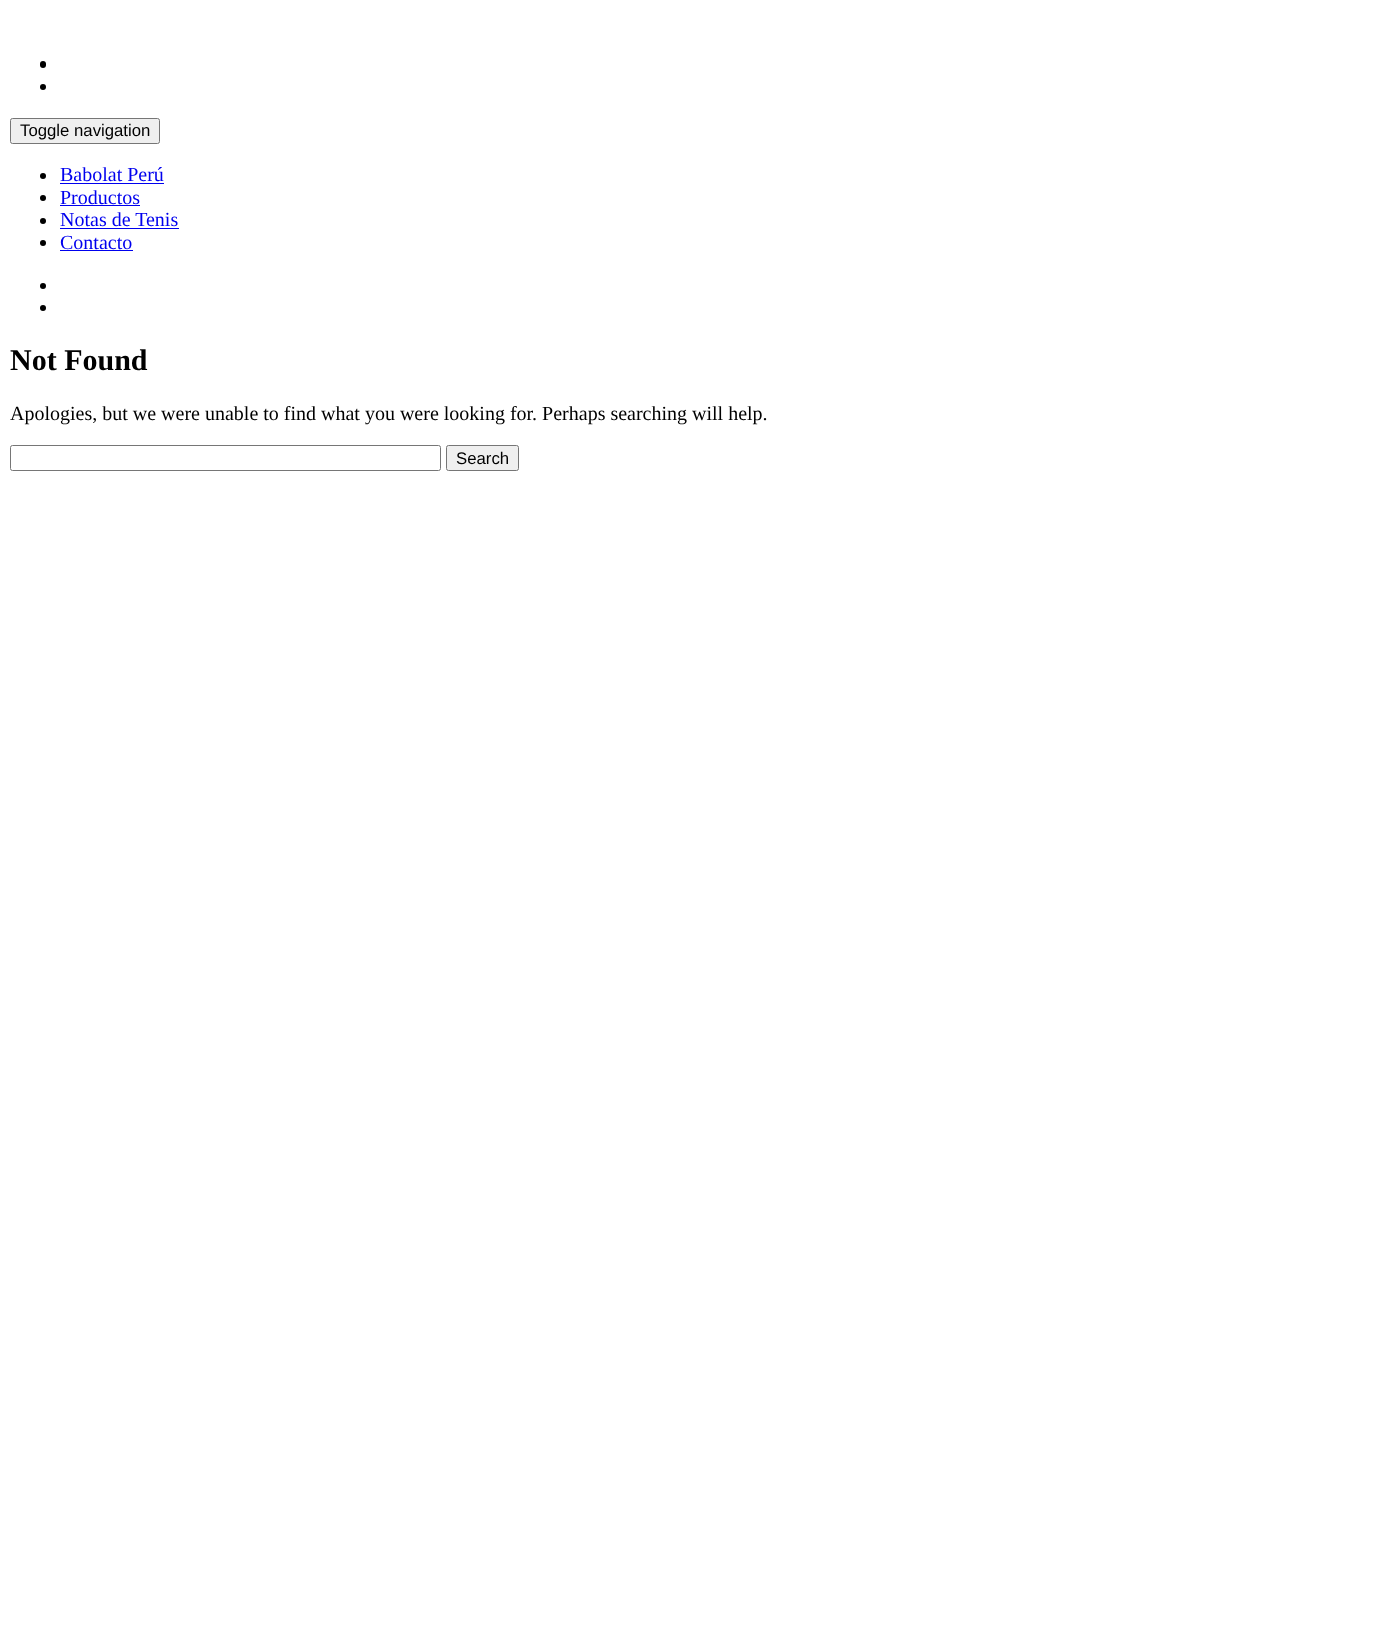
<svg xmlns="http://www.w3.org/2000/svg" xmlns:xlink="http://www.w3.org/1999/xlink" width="1387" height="1648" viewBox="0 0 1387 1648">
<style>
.cls-1{font:16.75px Liberation Sans;fill:#000000}
.cls-2{font:20px Liberation Serif;fill:#0000ee}
.cls-3{font:bold 30px Liberation Serif;fill:#000000}
.cls-4{font:20px Liberation Serif;fill:#000000}
</style>
<rect width="100%" height="100%" fill="#ffffff"/>
<rect fill="#000000" x="40" y="61" width="6" height="7" rx="3"/>
<circle fill="#000000" cx="43" cy="87" r="3"/>
<rect fill="#efefef" stroke="#767676" x="10.5" y="118.5" width="149" height="25" rx="2"/>
<circle fill="#000000" cx="43" cy="176" r="3"/>
<rect fill="#0000ee" x="60" y="183" width="104" height="1"/>
<circle fill="#000000" cx="43" cy="198" r="3"/>
<rect fill="#0000ee" x="60" y="205" width="80" height="1"/>
<circle fill="#000000" cx="43" cy="221" r="3"/>
<rect fill="#0000ee" x="60" y="228" width="119" height="1"/>
<circle fill="#000000" cx="43" cy="243" r="3"/>
<rect fill="#0000ee" x="60" y="250" width="73" height="1"/>
<circle fill="#000000" cx="43" cy="286" r="3"/>
<circle fill="#000000" cx="43" cy="308" r="3"/>
<rect fill="none" stroke="#767676" x="10.5" y="445.5" width="430" height="25" rx="2"/>
<rect fill="#efefef" stroke="#767676" x="446.5" y="445.5" width="72" height="25" rx="2"/>
<text class="cls-1" x="20" y="136">Toggle navigation</text>
<text class="cls-2"><tspan x="60" y="181">Babolat Perú</tspan><tspan x="60" y="204">Productos</tspan><tspan x="60" y="226">Notas de Tenis</tspan><tspan x="60" y="249">Contacto</tspan></text>
<text class="cls-3" x="10" y="370">Not Found</text>
<text class="cls-4" x="10" y="420">Apologies, but we were unable to find what you were looking for. Perhaps searching will help.</text>
<text class="cls-1" x="456" y="464">Search</text>
</svg>
